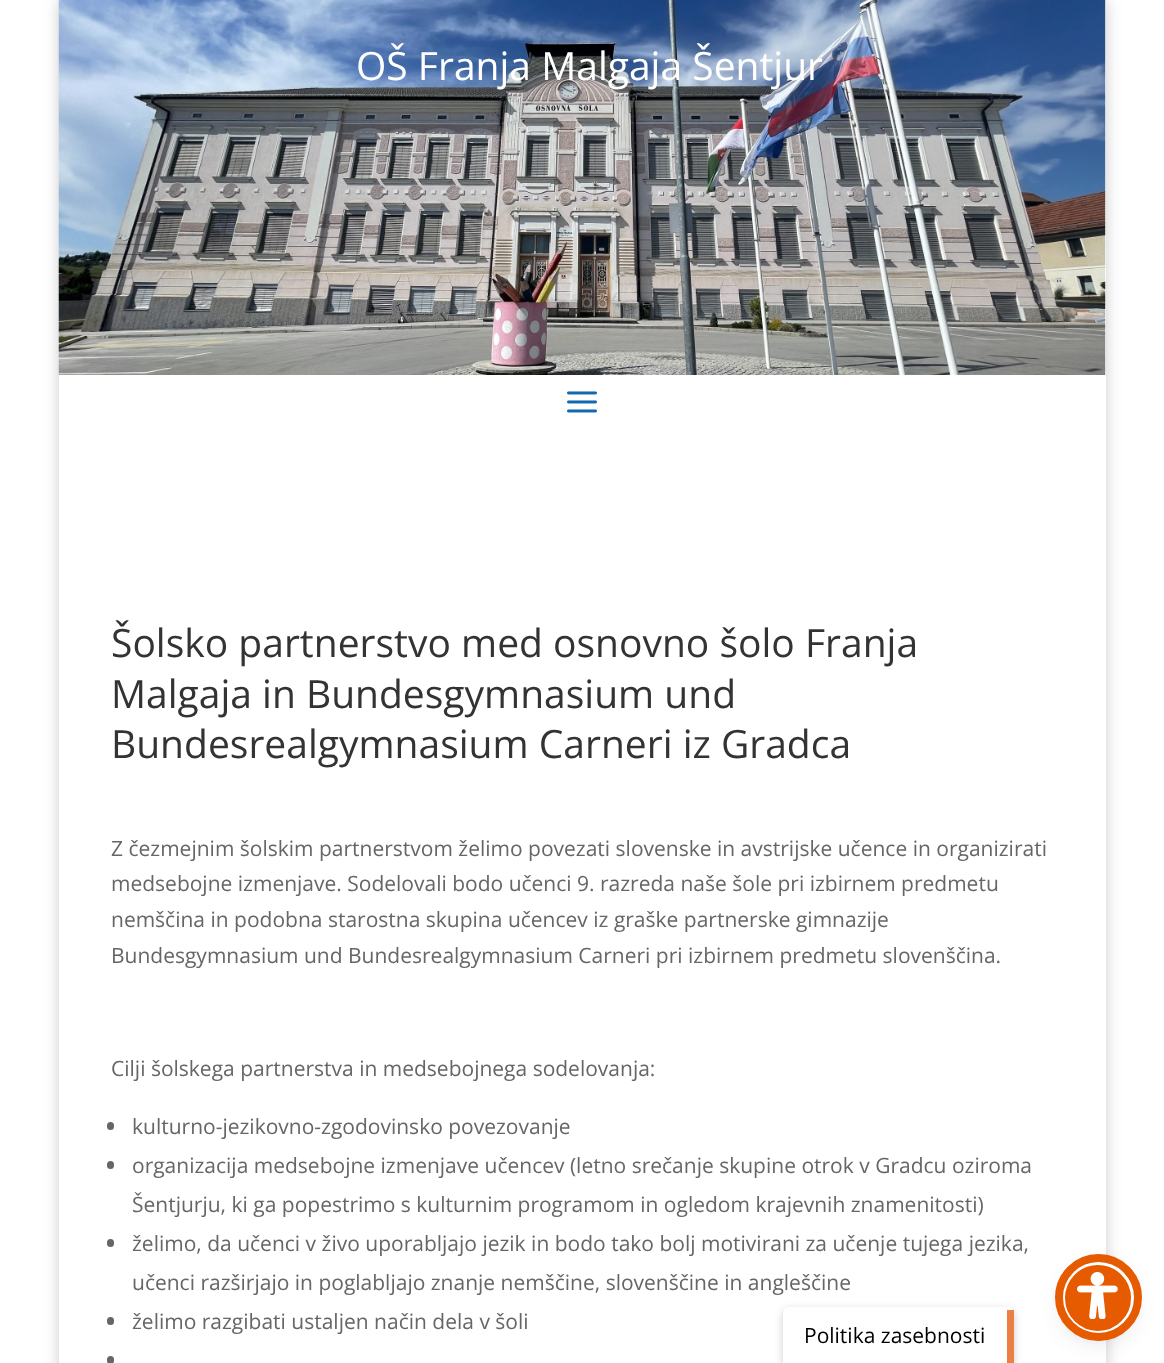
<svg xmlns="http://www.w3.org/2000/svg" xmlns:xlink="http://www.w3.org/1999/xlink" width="1164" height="1363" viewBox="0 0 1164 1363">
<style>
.cls-1{font:39px Open Sans;fill:#ffffff}
.cls-2{font:39px Open Sans;fill:#333333}
.cls-3{font:21px Open Sans;fill:#666666}
.cls-4{font:21px Open Sans;fill:#000000}
</style>
<rect width="100%" height="100%" fill="#ffffff"/>
<rect fill="#000000" fill-opacity="0.2" filter="blur(7.5px)" x="59" y="0" width="1047" height="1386"/>
<rect fill="#ffffff" x="59" y="0" width="1047" height="1363"/>
<image xlink:href="image0.png" x="58" y="0" width="1048" height="375"/>
<image xlink:href="image1.png" x="567" y="391" width="30" height="22"/>
<rect fill="#666666" x="107" y="1122" width="7" height="8" rx="3.5"/>
<rect fill="#666666" x="107" y="1161" width="7" height="8" rx="3.5"/>
<rect fill="#666666" x="107" y="1239" width="7" height="8" rx="3.5"/>
<rect fill="#666666" x="107" y="1317" width="7" height="8" rx="3.5"/>
<rect fill="#666666" x="107" y="1356" width="7" height="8" rx="3.5"/>
<rect fill="#5d6494" fill-opacity="0.2" filter="blur(3px)" x="1062" y="1265" width="72" height="72" rx="36"/>
<rect fill="#252c61" fill-opacity="0.15" filter="blur(11px)" x="1062" y="1269" width="72" height="72" rx="36"/>
<circle fill="#e65a00" stroke="#ffffff" stroke-width="3" cx="1098" cy="1298" r="34.5"/>
<circle fill="none" stroke="#e65a00" stroke-width="8" cx="1098.5" cy="1297.5" r="39.5"/>
<image xlink:href="image2.png" x="1077" y="1272" width="41" height="47"/>
<rect fill="#000000" fill-opacity="0.2" filter="blur(4px)" x="783" y="1310" width="231" height="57" rx="6"/>
<path fill="#ffffff" d="M789 1307H1008C1011.5 1307 1014 1309.5 1014 1313V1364H783V1313C783 1309.5 785.5 1307 789 1307Z"/>
<rect fill="#ec7f43" x="1007" y="1310" width="7" height="53"/>
<text class="cls-1" x="356" y="80">OŠ Franja Malgaja Šentjur</text>
<text class="cls-2"><tspan x="111" y="657">Šolsko partnerstvo med osnovno šolo Franja</tspan><tspan x="111" y="708">Malgaja in Bundesgymnasium und</tspan><tspan x="111" y="758">Bundesrealgymnasium Carneri iz Gradca</tspan></text>
<text class="cls-3"><tspan x="111" y="856">Z čezmejnim šolskim partnerstvom želimo povezati slovenske in avstrijske učence in organizirati</tspan><tspan x="111" y="891">medsebojne izmenjave. Sodelovali bodo učenci 9. razreda naše šole pri izbirnem predmetu</tspan><tspan x="111" y="927">nemščina in podobna starostna skupina učencev iz graške partnerske gimnazije</tspan><tspan x="111" y="963">Bundesgymnasium und Bundesrealgymnasium Carneri pri izbirnem predmetu slovenščina.</tspan></text>
<text class="cls-3" x="111" y="1076">Cilji šolskega partnerstva in medsebojnega sodelovanja:</text>
<text class="cls-3"><tspan x="132" y="1134">kulturno-jezikovno-zgodovinsko povezovanje</tspan><tspan x="132" y="1173">organizacija medsebojne izmenjave učencev (letno srečanje skupine otrok v Gradcu oziroma</tspan><tspan x="132" y="1212">Šentjurju, ki ga popestrimo s kulturnim programom in ogledom krajevnih znamenitosti)</tspan><tspan x="132" y="1251">želimo, da učenci v živo uporabljajo jezik in bodo tako bolj motivirani za učenje tujega jezika,</tspan><tspan x="132" y="1290">učenci razširjajo in poglabljajo znanje nemščine, slovenščine in angleščine</tspan><tspan x="132" y="1329">želimo razgibati ustaljen način dela v šoli</tspan></text>
<text class="cls-4" x="804" y="1343">Politika zasebnosti</text>
</svg>
